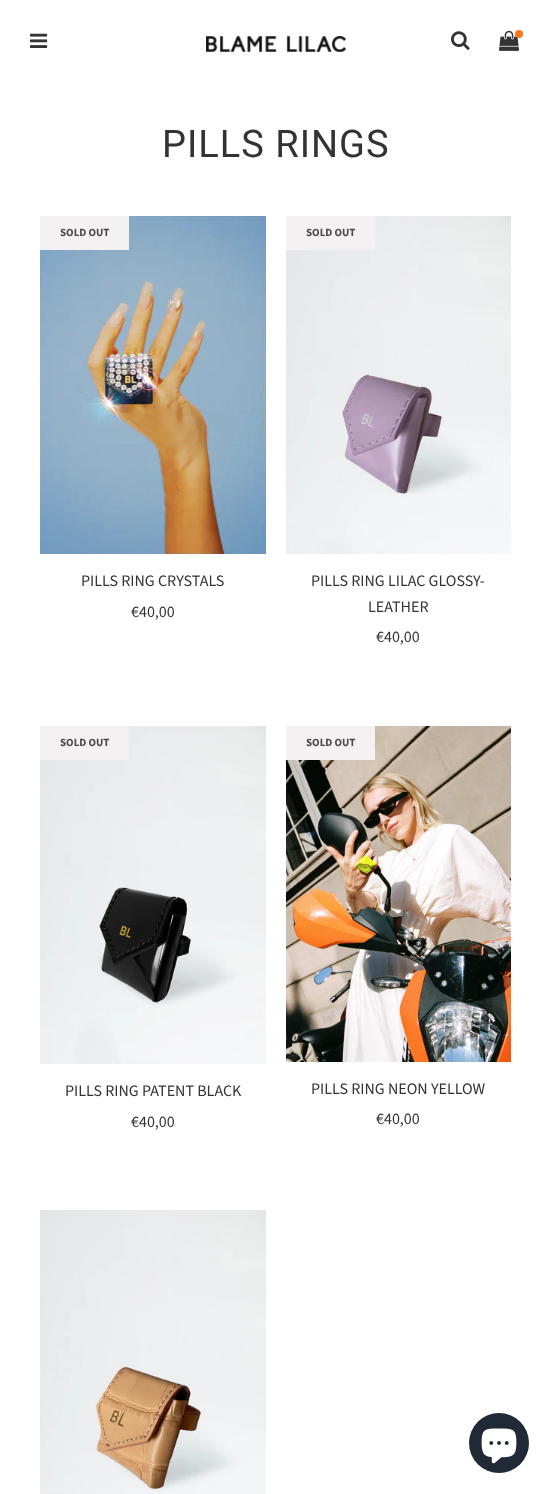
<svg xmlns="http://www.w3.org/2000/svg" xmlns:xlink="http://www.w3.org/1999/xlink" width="551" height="1494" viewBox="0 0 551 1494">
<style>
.cls-1{font:38px Roboto;letter-spacing:1px;fill:#333333}
.cls-2{font:bold 11px Source Sans Pro;fill:#494949}
.cls-3{font:16px Source Sans Pro;fill:#333333}
</style>
<rect width="100%" height="100%" fill="#ffffff"/>
<image xlink:href="image0.png" x="30" y="33" width="18" height="15"/>
<image xlink:href="image1.png" x="206" y="36" width="140" height="16"/>
<image xlink:href="image2.png" x="451" y="31" width="19" height="19"/>
<image xlink:href="image3.png" x="499" y="30" width="20" height="21"/>
<circle fill="#fe751c" cx="519" cy="34" r="4"/>
<image xlink:href="image4.png" x="40" y="216" width="226" height="338"/>
<rect fill="#f3f1f1" x="40" y="216" width="89" height="34"/>
<image xlink:href="image5.png" x="286" y="216" width="225" height="338"/>
<rect fill="#f3f1f1" x="286" y="216" width="89" height="34"/>
<image xlink:href="image6.png" x="40" y="726" width="226" height="338"/>
<rect fill="#f3f1f1" x="40" y="726" width="89" height="34"/>
<image xlink:href="image7.png" x="286" y="726" width="225" height="336"/>
<rect fill="#f3f1f1" x="286" y="726" width="89" height="34"/>
<image xlink:href="image8.png" x="40" y="1210" width="226" height="284"/>
<circle fill="#202a36" cx="499" cy="1443" r="30"/>
<image xlink:href="image9.png" x="481" y="1428" width="36" height="36"/>
<text class="cls-1" x="162" y="157">PILLS RINGS</text>
<text class="cls-2" x="60" y="236">SOLD OUT</text>
<text class="cls-3" x="81" y="586">PILLS RING CRYSTALS</text>
<text class="cls-3" x="131" y="617">€40,00</text>
<text class="cls-2" x="306" y="236">SOLD OUT</text>
<text class="cls-3" x="311" y="586">PILLS RING LILAC GLOSSY-</text>
<text class="cls-3" x="368" y="612">LEATHER</text>
<text class="cls-3" x="376" y="642">€40,00</text>
<text class="cls-2" x="60" y="746">SOLD OUT</text>
<text class="cls-3" x="65" y="1096">PILLS RING PATENT BLACK</text>
<text class="cls-3" x="131" y="1127">€40,00</text>
<text class="cls-2" x="306" y="746">SOLD OUT</text>
<text class="cls-3" x="311" y="1094">PILLS RING NEON YELLOW</text>
<text class="cls-3" x="376" y="1124">€40,00</text>
</svg>
